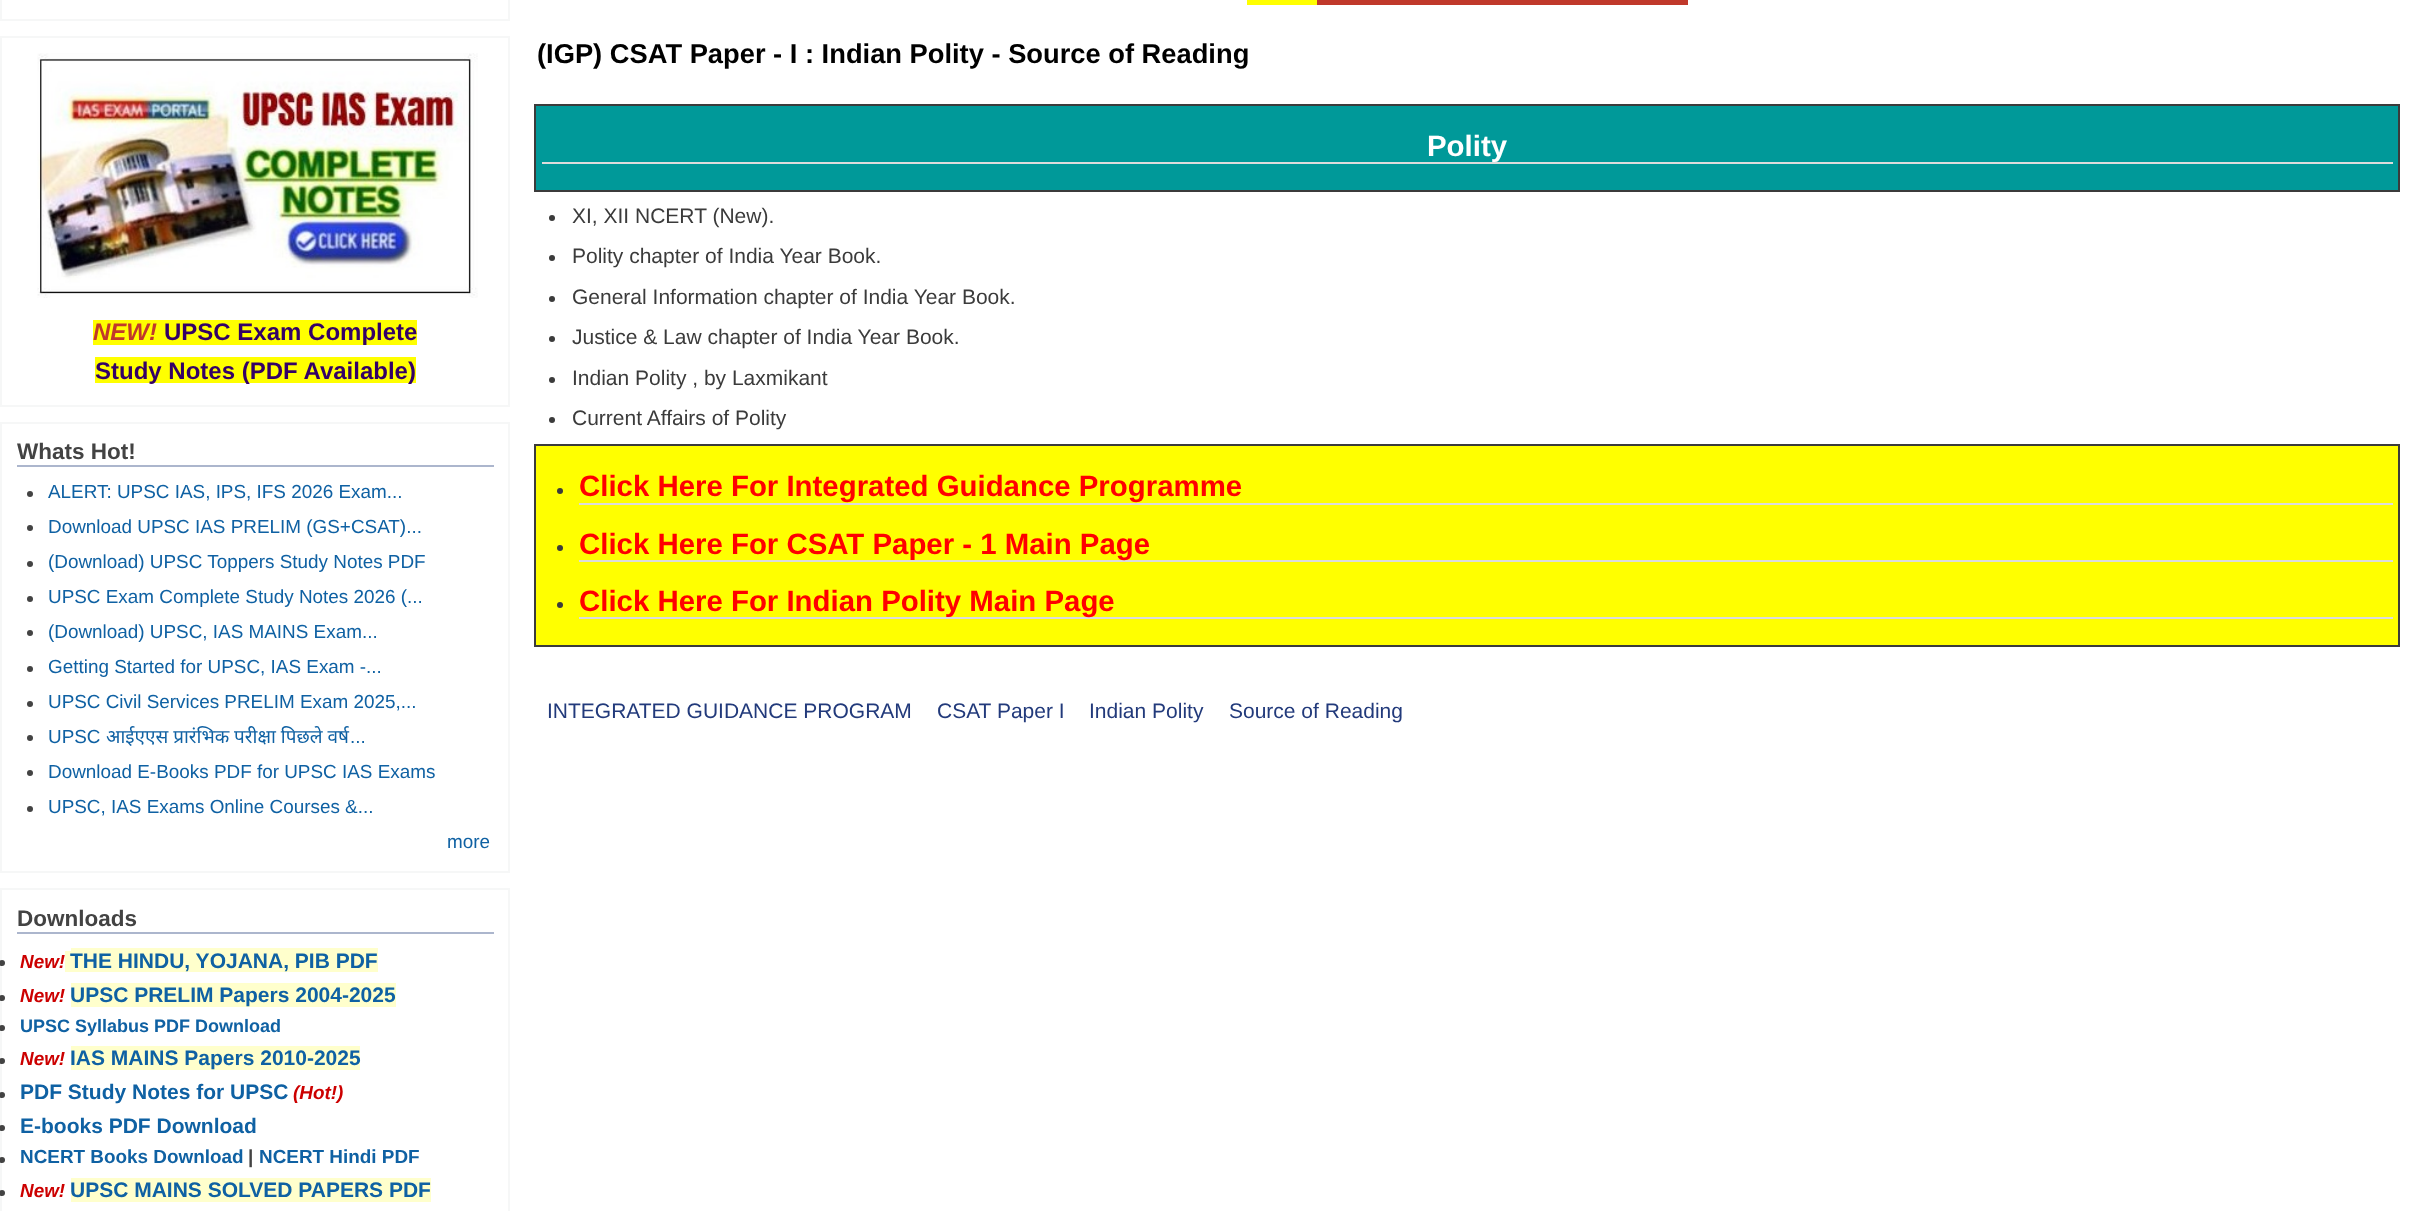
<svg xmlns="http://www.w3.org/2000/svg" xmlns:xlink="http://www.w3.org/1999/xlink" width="2409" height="1211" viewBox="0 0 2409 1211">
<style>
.cls-1{font:italic bold 24px Liberation Sans;fill:#c0392b}
.cls-2{font:bold 24px Liberation Sans;fill:#330066}
.cls-3{font:bold 22.5px Liberation Sans;fill:#434343}
.cls-4{font:18.9px Liberation Sans;fill:#0f61a3}
.cls-5{font:18.9px Noto Sans;fill:#0f61a3}
.cls-6{font:italic bold 18.9px Liberation Sans;fill:#cc0000}
.cls-7{font:bold 21px Liberation Sans;fill:#0f61a3}
.cls-8{font:bold 18px Liberation Sans;fill:#0f61a3}
.cls-9{font:bold 18.9px Liberation Sans;fill:#0f61a3}
.cls-10{font:bold 18.9px Liberation Sans;fill:#434343}
.cls-11{font:bold 27.3px Liberation Sans;fill:#000000}
.cls-12{font:bold 29.4px Liberation Sans;fill:#ffffff}
.cls-13{font:21px Liberation Sans;fill:#3b3b3b}
.cls-14{font:bold 29.4px Liberation Sans;fill:#ff0000}
.cls-15{font:21px Liberation Sans;fill:#223a7b}
</style>
<rect width="100%" height="100%" fill="#ffffff"/>
<rect fill="none" stroke="#f6f7f7" stroke-width="2" x="1" y="-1" width="508" height="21"/>
<rect fill="none" stroke="#f6f7f7" stroke-width="2" x="1" y="37" width="508" height="369"/>
<image xlink:href="image0.png" x="37" y="53" width="441" height="245"/>
<rect fill="#ffff00" x="93" y="320" width="324" height="25"/>
<rect fill="#ffff00" x="95" y="357" width="321" height="26"/>
<rect fill="none" stroke="#f6f7f7" stroke-width="2" x="1" y="423" width="508" height="449"/>
<rect fill="#acb6cd" x="17" y="465" width="477" height="2"/>
<circle fill="#434343" cx="30" cy="494" r="3"/>
<circle fill="#434343" cx="30" cy="528" r="3"/>
<circle fill="#434343" cx="30" cy="564" r="3"/>
<circle fill="#434343" cx="30" cy="599" r="3"/>
<circle fill="#434343" cx="30" cy="633" r="3"/>
<circle fill="#434343" cx="30" cy="669" r="3"/>
<circle fill="#434343" cx="30" cy="704" r="3"/>
<circle fill="#434343" cx="30" cy="738" r="3"/>
<circle fill="#434343" cx="30" cy="773" r="3"/>
<circle fill="#434343" cx="30" cy="809" r="3"/>
<rect fill="none" stroke="#f6f7f7" stroke-width="2" x="1" y="889" width="508" height="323"/>
<rect fill="#acb6cd" x="17" y="932" width="477" height="2"/>
<circle fill="#434343" cx="2" cy="963" r="3"/>
<rect fill="#ffffcc" x="65" y="951" width="6" height="21"/>
<rect fill="#ffffcc" x="71" y="948" width="307" height="24"/>
<circle fill="#434343" cx="2" cy="998" r="3"/>
<rect fill="#ffffcc" x="71" y="983" width="325" height="24"/>
<circle fill="#434343" cx="2" cy="1028" r="3"/>
<circle fill="#434343" cx="2" cy="1061" r="3"/>
<rect fill="#ffffcc" x="71" y="1046" width="289" height="24"/>
<circle fill="#434343" cx="2" cy="1095" r="3"/>
<circle fill="#434343" cx="2" cy="1128" r="3"/>
<circle fill="#434343" cx="2" cy="1160" r="3"/>
<circle fill="#434343" cx="2" cy="1193" r="3"/>
<rect fill="#ffffcc" x="71" y="1178" width="360" height="24"/>
<rect fill="#ffff00" x="1247" y="0" width="70" height="5"/>
<rect fill="#c0392b" x="1317" y="0" width="371" height="5"/>
<rect fill="#009999" stroke="#3b3b3b" stroke-width="2" x="535" y="105" width="1864" height="86"/>
<rect fill="#dcdcdc" x="542" y="162" width="1851" height="2"/>
<circle fill="#3b3b3b" cx="552" cy="218" r="3"/>
<circle fill="#3b3b3b" cx="552" cy="258" r="3"/>
<circle fill="#3b3b3b" cx="552" cy="299" r="3"/>
<circle fill="#3b3b3b" cx="552" cy="339" r="3"/>
<circle fill="#3b3b3b" cx="552" cy="380" r="3"/>
<circle fill="#3b3b3b" cx="552" cy="420" r="3"/>
<rect fill="#ffff00" stroke="#3b3b3b" stroke-width="2" x="535" y="445" width="1864" height="201"/>
<circle fill="#3b3b3b" cx="560" cy="491" r="3"/>
<rect fill="#dcdcdc" x="579" y="503" width="1814" height="2"/>
<circle fill="#3b3b3b" cx="560" cy="548" r="3"/>
<rect fill="#dcdcdc" x="579" y="560" width="1814" height="2"/>
<circle fill="#3b3b3b" cx="560" cy="605" r="3"/>
<rect fill="#dcdcdc" x="579" y="617" width="1814" height="2"/>
<text class="cls-1" x="93" y="340">NEW!</text>
<text class="cls-2" x="164" y="340">UPSC Exam Complete</text>
<text class="cls-2" x="95" y="379">Study Notes (PDF Available)</text>
<text class="cls-3" x="17" y="459">Whats Hot!</text>
<text class="cls-4"><tspan x="48" y="498">ALERT: UPSC IAS, IPS, IFS 2026 Exam...</tspan><tspan x="48" y="533">Download UPSC IAS PRELIM (GS+CSAT)...</tspan><tspan x="48" y="568">(Download) UPSC Toppers Study Notes PDF</tspan><tspan x="48" y="603">UPSC Exam Complete Study Notes 2026 (...</tspan><tspan x="48" y="638">(Download) UPSC, IAS MAINS Exam...</tspan><tspan x="48" y="673">Getting Started for UPSC, IAS Exam -...</tspan><tspan x="48" y="708">UPSC Civil Services PRELIM Exam 2025,...</tspan><tspan x="48" y="743">UPSC</tspan></text>
<text class="cls-5" x="106" y="743">आईएएस प्रारंभिक परीक्षा पिछले वर्ष</text>
<text class="cls-4" x="350" y="743">...</text>
<text class="cls-4"><tspan x="48" y="778">Download E-Books PDF for UPSC IAS Exams</tspan><tspan x="48" y="813">UPSC, IAS Exams Online Courses &amp;...</tspan></text>
<text class="cls-4" x="447" y="848">more</text>
<text class="cls-3" x="17" y="926">Downloads</text>
<text class="cls-6" x="20" y="968">New!</text>
<text class="cls-7" x="70" y="968">THE HINDU, YOJANA, PIB PDF</text>
<text class="cls-6" x="20" y="1002">New!</text>
<text class="cls-7" x="70" y="1002">UPSC PRELIM Papers 2004-2025</text>
<text class="cls-8" x="20" y="1032">UPSC Syllabus PDF Download</text>
<text class="cls-6" x="20" y="1065">New!</text>
<text class="cls-7" x="70" y="1065">IAS MAINS Papers 2010-2025</text>
<text class="cls-7" x="20" y="1099">PDF Study Notes for UPSC</text>
<text class="cls-6" x="293" y="1099">(Hot!)</text>
<text class="cls-7" x="20" y="1133">E-books PDF Download</text>
<text class="cls-9" x="20" y="1163">NCERT Books Download</text>
<text class="cls-10" x="248" y="1163">|</text>
<text class="cls-9" x="259" y="1163">NCERT Hindi PDF</text>
<text class="cls-6" x="20" y="1197">New!</text>
<text class="cls-7" x="70" y="1197">UPSC MAINS SOLVED PAPERS PDF</text>
<text class="cls-11" x="537" y="63">(IGP) CSAT Paper - I : Indian Polity - Source of Reading</text>
<text class="cls-12" x="1427" y="156">Polity</text>
<text class="cls-13"><tspan x="572" y="223">XI, XII NCERT (New).</tspan><tspan x="572" y="263">Polity chapter of India Year Book.</tspan><tspan x="572" y="304">General Information chapter of India Year Book.</tspan><tspan x="572" y="344">Justice &amp; Law chapter of India Year Book.</tspan><tspan x="572" y="385">Indian Polity , by Laxmikant</tspan><tspan x="572" y="425">Current Affairs of Polity</tspan></text>
<text class="cls-14"><tspan x="579" y="496">Click Here For Integrated Guidance Programme</tspan><tspan x="579" y="554">Click Here For CSAT Paper - 1 Main Page</tspan><tspan x="579" y="611">Click Here For Indian Polity Main Page</tspan></text>
<text class="cls-15" x="547" y="718">INTEGRATED GUIDANCE PROGRAM</text>
<text class="cls-15" x="937" y="718">CSAT Paper I</text>
<text class="cls-15" x="1089" y="718">Indian Polity</text>
<text class="cls-15" x="1229" y="718">Source of Reading</text>
</svg>
